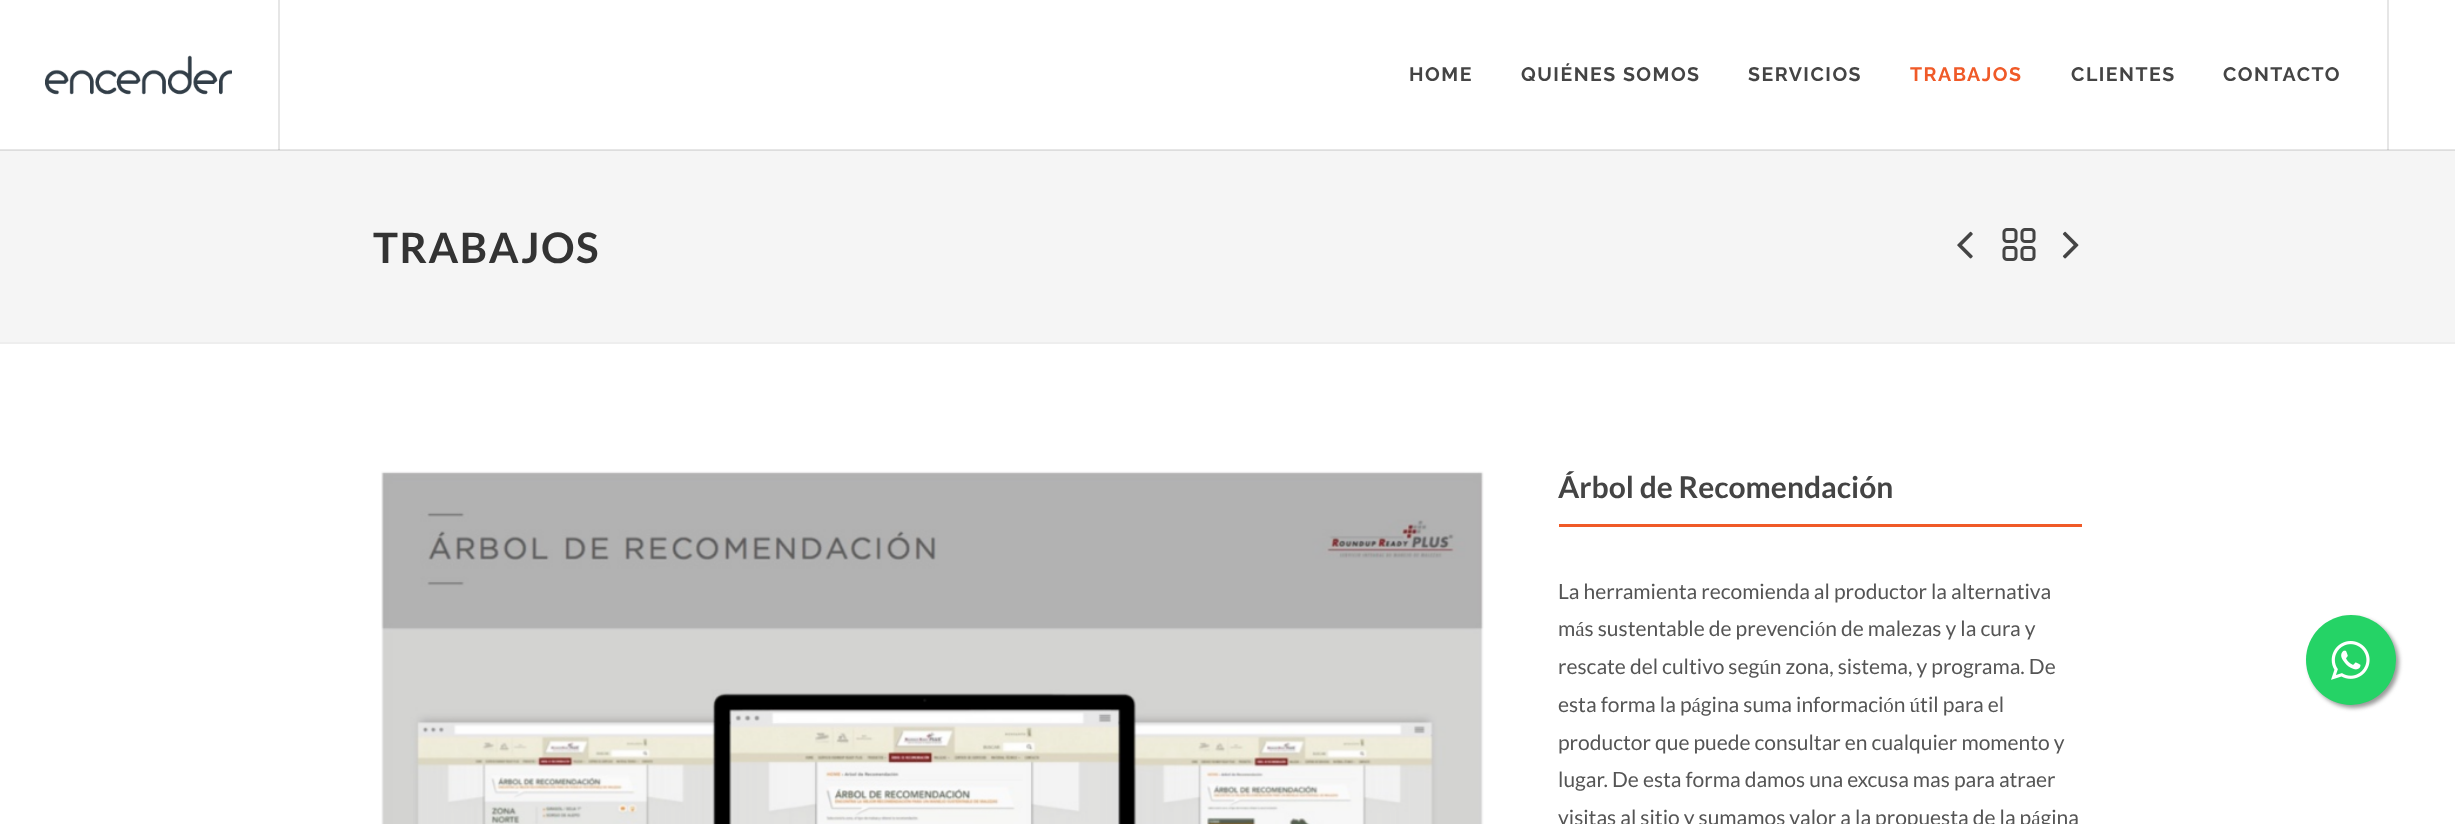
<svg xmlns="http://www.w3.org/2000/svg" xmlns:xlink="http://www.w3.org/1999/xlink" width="2455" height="824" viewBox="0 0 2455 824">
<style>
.cls-1{font:bold 19.5px Raleway;letter-spacing:1.5px;fill:#444444}
.cls-2{font:bold 19.5px Raleway;letter-spacing:1.5px;fill:#f05a28}
.cls-3{font:bold 42px Lato;letter-spacing:1.5px;fill:#333333}
.cls-4{font:bold 30px Lato;fill:#444444}
.cls-5{font:21px Lato;fill:#555555}
</style>
<rect width="100%" height="100%" fill="#ffffff"/>
<rect fill="#e6e6e6" x="278" y="0" width="2" height="150"/>
<rect fill="#e6e6e6" x="2387" y="0" width="2" height="150"/>
<rect fill="#e6e6e6" x="0" y="149" width="2455" height="1"/>
<rect fill="#cfcfcf" x="278" y="149" width="2" height="1"/>
<rect fill="#cfcfcf" x="2387" y="149" width="2" height="1"/>
<image xlink:href="image0.png" x="45" y="55" width="187" height="40"/>
<rect fill="#f5f5f5" x="0" y="151" width="2455" height="191"/>
<rect fill="#dddddd" x="0" y="150" width="2455" height="1"/>
<rect fill="#eeeeee" x="0" y="342" width="2455" height="2"/>
<image xlink:href="image1.png" x="1957" y="231" width="16" height="28"/>
<image xlink:href="image2.png" x="2002" y="228" width="34" height="33"/>
<image xlink:href="image3.png" x="2062" y="231" width="17" height="28"/>
<image xlink:href="image4.png" x="381" y="471" width="1103" height="353"/>
<rect fill="#f05a28" x="1559" y="524" width="523" height="3"/>
<rect fill="#999999" filter="blur(2px)" x="2309" y="618" width="90" height="90" rx="45"/>
<circle fill="#25d366" cx="2351" cy="660" r="45"/>
<image xlink:href="image5.png" x="2331" y="641" width="39" height="39"/>
<text class="cls-1" x="1409" y="81">HOME</text>
<text class="cls-1" x="1521" y="81">QUIÉNES SOMOS</text>
<text class="cls-1" x="1748" y="81">SERVICIOS</text>
<text class="cls-2" x="1910" y="81">TRABAJOS</text>
<text class="cls-1" x="2071" y="81">CLIENTES</text>
<text class="cls-1" x="2223" y="81">CONTACTO</text>
<text class="cls-3" x="373" y="263">TRABAJOS</text>
<text class="cls-4" x="1558" y="498">Árbol de Recomendación</text>
<text class="cls-5"><tspan x="1558" y="599">La herramienta recomienda al productor la alternativa</tspan><tspan x="1558" y="636">más sustentable de prevención de malezas y la cura y</tspan><tspan x="1558" y="674">rescate del cultivo según zona, sistema, y programa. De</tspan><tspan x="1558" y="712">esta forma la página suma información útil para el</tspan><tspan x="1558" y="750">productor que puede consultar en cualquier momento y</tspan><tspan x="1558" y="787">lugar. De esta forma damos una excusa mas para atraer</tspan><tspan x="1558" y="825">visitas al sitio y sumamos valor a la propuesta de la página</tspan></text>
</svg>
